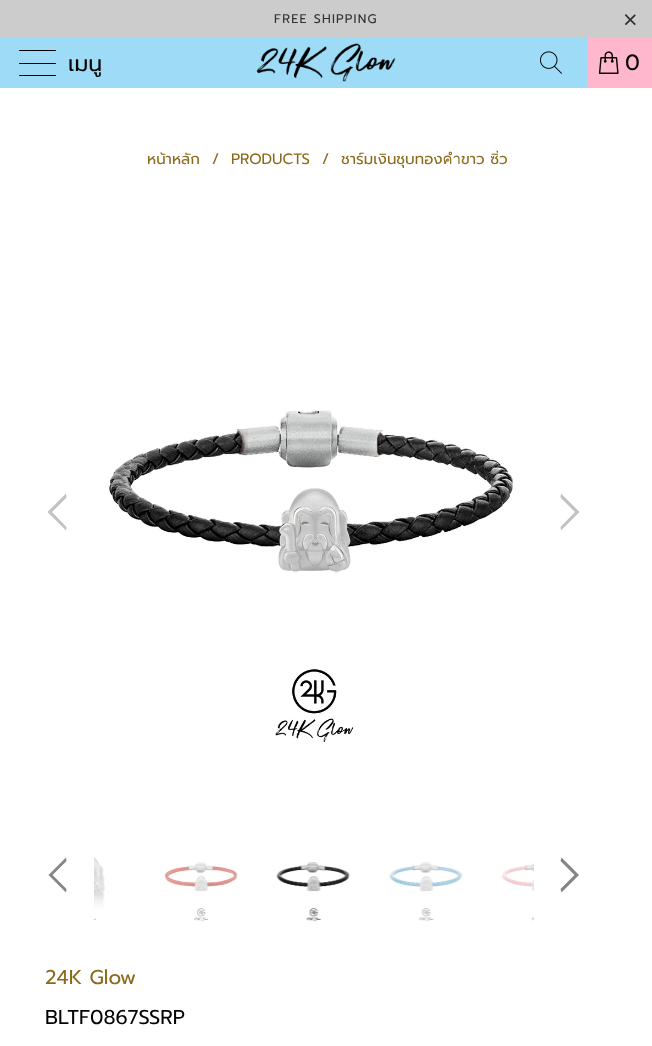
<svg xmlns="http://www.w3.org/2000/svg" xmlns:xlink="http://www.w3.org/1999/xlink" width="652" height="1046" viewBox="0 0 652 1046">
<style>
.cls-1{font:12.5px Prompt;letter-spacing:1.25px;fill:#333333}
.cls-2{font:25px Liberation Sans;letter-spacing:1.25px;fill:#333333}
.cls-3{font:22px Prompt;fill:#040404}
.cls-4{font:15px Prompt;fill:#8b6a1b}
.cls-5{font:20px Prompt;fill:#8b6a1b}
.cls-6{font:20px Prompt;fill:#040404}
</style>
<rect width="100%" height="100%" fill="#ffffff"/>
<rect fill="#cccccc" x="0" y="0" width="652" height="38"/>
<rect fill="#9edbf7" x="0" y="38" width="588" height="50"/>
<rect fill="#000000" x="19" y="50" width="37" height="1" rx="0.5"/>
<rect fill="#000000" x="19" y="63" width="37" height="1" rx="0.5"/>
<rect fill="#000000" x="19" y="75" width="37" height="1" rx="0.5"/>
<image xlink:href="image0.png" x="256" y="43" width="140" height="39"/>
<image xlink:href="image1.png" x="540" y="51" width="22" height="23"/>
<rect fill="#ffb7cd" x="588" y="38" width="64" height="50"/>
<image xlink:href="image2.png" x="598" y="51" width="21" height="23"/>
<path fill="#c2c2c2" d="M47.5 512L66 530.5L66.5 527L52 512L66.5 497.5L66 493.5Z"/>
<image xlink:href="image3.png" x="108" y="410" width="405" height="332"/>
<path fill="#c2c2c2" d="M579.5 512L561 493.5L560.5 497.5L575 512L560.5 527L561 530.5Z"/>
<path fill="#858585" d="M48.5 875L66 892.5L66.5 889L52.5 875L66.5 861L66 857.5Z"/>
<image xlink:href="image4.png" x="94" y="856" width="11" height="66"/>
<image xlink:href="image5.png" x="164" y="862" width="74" height="60"/>
<image xlink:href="image6.png" x="276" y="862" width="74" height="60"/>
<image xlink:href="image7.png" x="389" y="862" width="74" height="60"/>
<image xlink:href="image8.png" x="501" y="862" width="33" height="60"/>
<path fill="#858585" d="M579 875L561.5 857.5L560.5 861L574.5 875L560.5 889L561.5 892.5Z"/>
<text class="cls-1" x="274" y="23">FREE SHIPPING</text>
<text class="cls-2" x="623" y="28">×</text>
<text class="cls-3" x="68" y="71">เมนู</text>
<text class="cls-3" x="625" y="70">0</text>
<text class="cls-4" x="147" y="164">หน้าหลัก</text>
<text class="cls-4" x="212" y="164">/</text>
<text class="cls-4" x="231" y="164">PRODUCTS</text>
<text class="cls-4" x="322" y="164">/</text>
<text class="cls-4" x="341" y="164">ชาร์มเงินชุบทองคำขาว ซิ่ว</text>
<text class="cls-5" x="45" y="984">24K Glow</text>
<text class="cls-6" x="45" y="1024">BLTF0867SSRP</text>
</svg>
